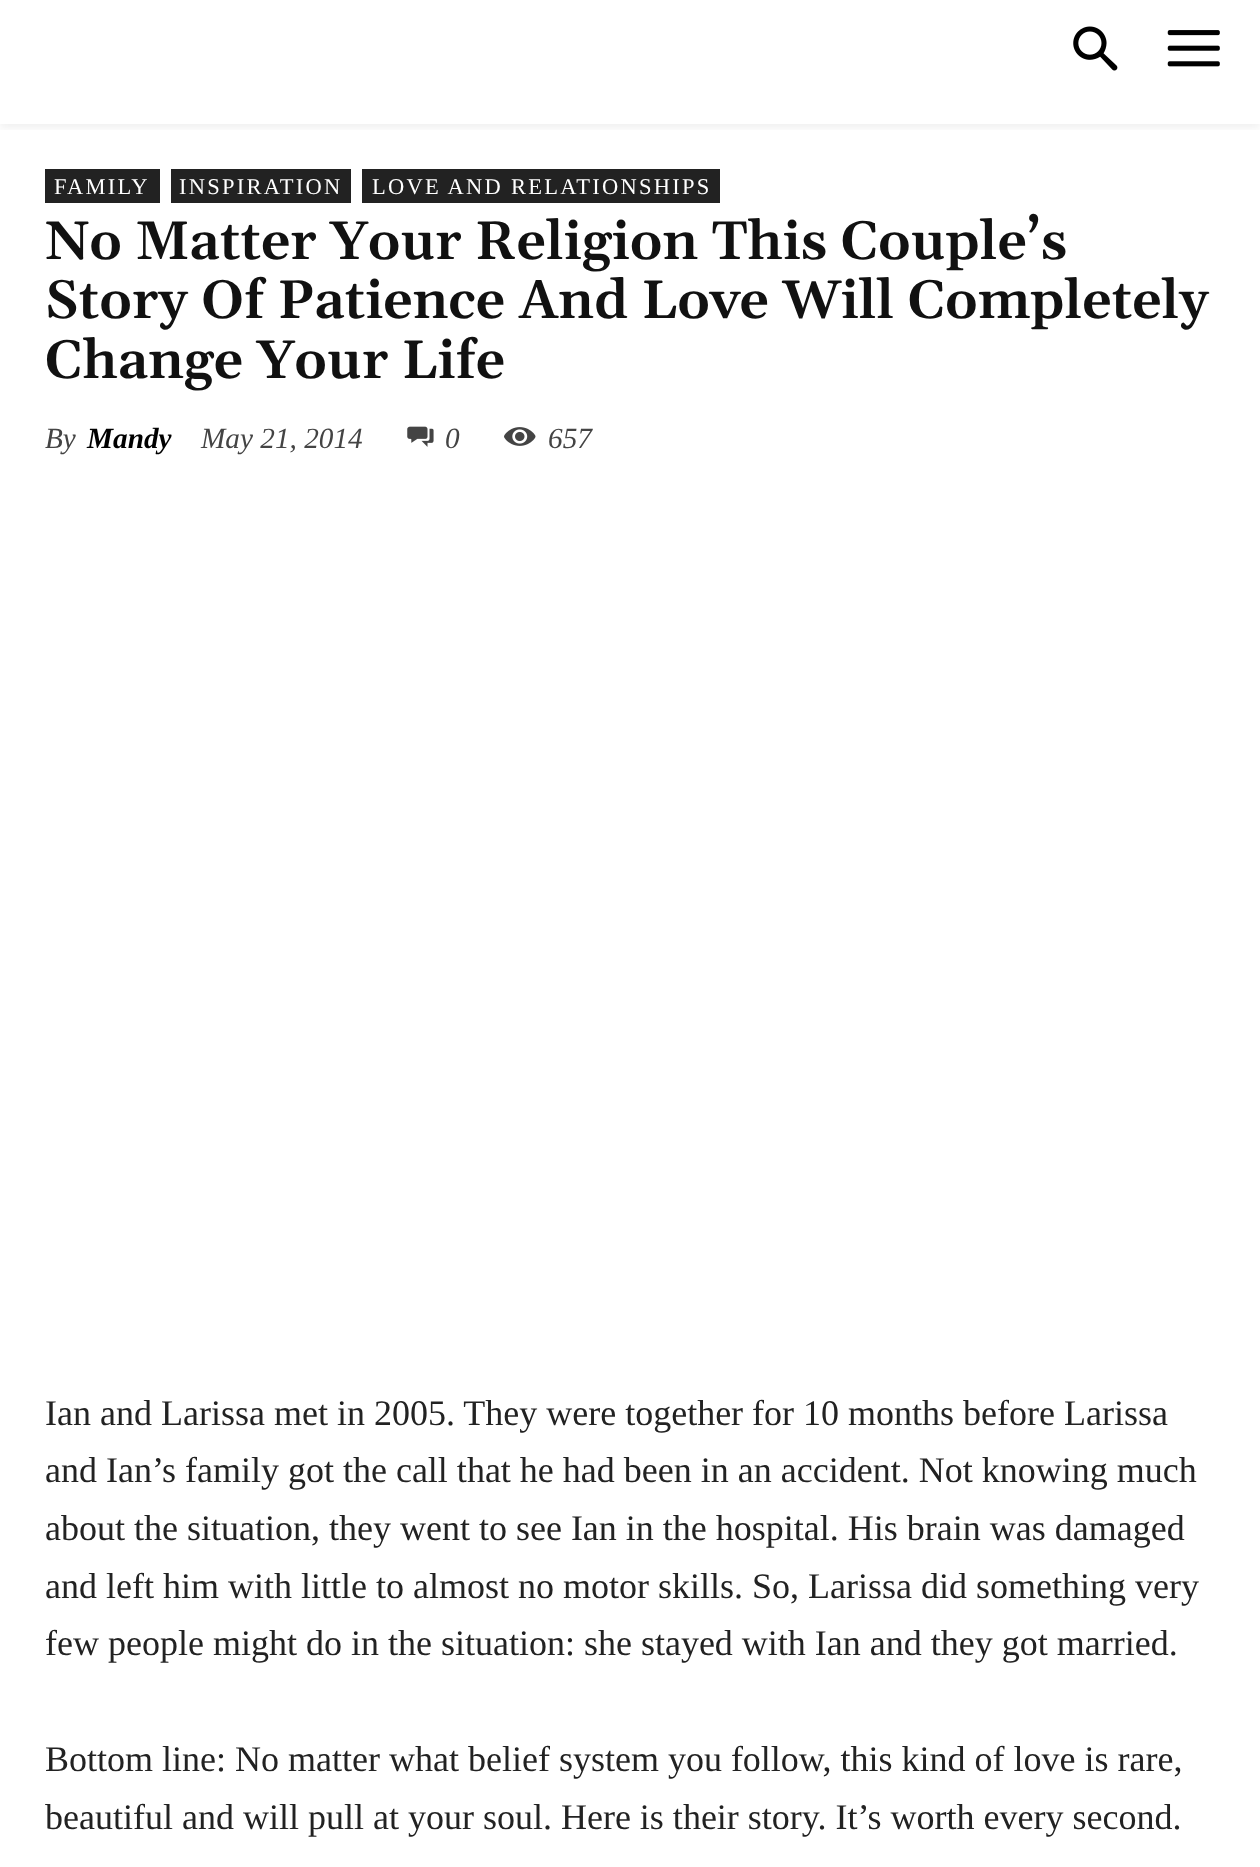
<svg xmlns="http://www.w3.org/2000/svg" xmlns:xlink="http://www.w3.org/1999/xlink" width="1260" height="1867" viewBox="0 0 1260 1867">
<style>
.cls-1{font:22.5px Liberation Serif;letter-spacing:2.25px;fill:#ffffff}
.cls-2{font:600 54px Gelasio;fill:#111111}
.cls-3{font:italic 29.25px Liberation Serif;fill:#444444}
.cls-4{font:italic bold 29.25px Liberation Serif;fill:#000000}
.cls-5{font:36px Liberation Serif;fill:#222222}
</style>
<defs>
<clipPath id="clip1"><rect x="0" y="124" width="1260" height="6"/></clipPath>
</defs>
<rect width="100%" height="100%" fill="#ffffff"/>
<image xlink:href="image0.png" x="1073" y="26" width="45" height="45"/>
<image xlink:href="image1.png" x="1167" y="30" width="53" height="37"/>
<g clip-path="url(#clip1)">
<rect fill="#000000" fill-opacity="0.06" filter="blur(4.5px)" x="0" y="5" width="1260" height="123"/>
</g>
<rect fill="#222222" x="45" y="169" width="115" height="34"/>
<rect fill="#222222" x="171" y="169" width="180" height="34"/>
<rect fill="#222222" x="362" y="169" width="358" height="34"/>
<image xlink:href="image2.png" x="407" y="426" width="27" height="21"/>
<image xlink:href="image3.png" x="504" y="427" width="32" height="19"/>
<text class="cls-1" x="54" y="194">FAMILY</text>
<text class="cls-1" x="179" y="194">INSPIRATION</text>
<text class="cls-1" x="372" y="194">LOVE AND RELATIONSHIPS</text>
<text class="cls-2"><tspan x="45" y="259">No Matter Your Religion This Couple’s</tspan><tspan x="45" y="318">Story Of Patience And Love Will Completely</tspan><tspan x="45" y="378">Change Your Life</tspan></text>
<text class="cls-3" x="45" y="448">By</text>
<text class="cls-4" x="87" y="448">Mandy</text>
<text class="cls-3" x="201" y="448">May 21, 2014</text>
<text class="cls-3" x="445" y="448">0</text>
<text class="cls-3" x="548" y="448">657</text>
<text class="cls-5"><tspan x="45" y="1425">Ian and Larissa met in 2005. They were together for 10 months before Larissa</tspan><tspan x="45" y="1482">and Ian’s family got the call that he had been in an accident. Not knowing much</tspan><tspan x="45" y="1540">about the situation, they went to see Ian in the hospital. His brain was damaged</tspan><tspan x="45" y="1598">and left him with little to almost no motor skills. So, Larissa did something very</tspan><tspan x="45" y="1655">few people might do in the situation: she stayed with Ian and they got married.</tspan></text>
<text class="cls-5"><tspan x="45" y="1771">Bottom line: No matter what belief system you follow, this kind of love is rare,</tspan><tspan x="45" y="1829">beautiful and will pull at your soul. Here is their story. It’s worth every second.</tspan></text>
</svg>
